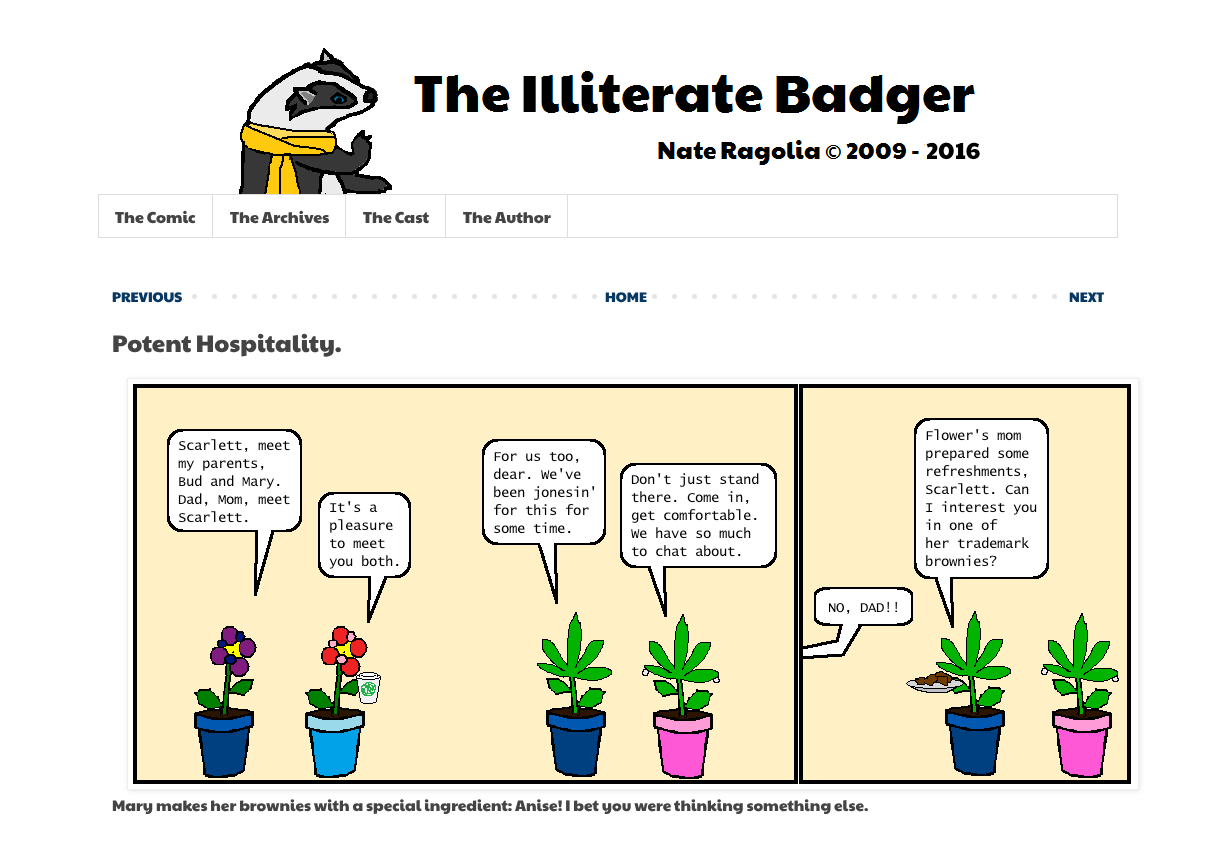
<svg xmlns="http://www.w3.org/2000/svg" xmlns:xlink="http://www.w3.org/1999/xlink" width="1216" height="854" viewBox="0 0 1216 854">
<style>
.cls-1{font:16px Paytone One;fill:#444444}
.cls-2{font:14px Paytone One;fill:#073763}
.cls-3{font:24px Paytone One;fill:#444444}
.cls-4{font:15.4px Paytone One;fill:#444444}
</style>
<defs>
<clipPath id="clip1"><path d="M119 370H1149V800H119ZM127 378H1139V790H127Z" clip-rule="evenodd"/></clipPath>
</defs>
<rect width="100%" height="100%" fill="#ffffff"/>
<image xlink:href="image0.png" x="239" y="48" width="741" height="146"/>
<rect fill="none" stroke="#dddddd" x="98.5" y="194.5" width="1019" height="43"/>
<rect fill="#dddddd" x="212" y="195" width="1" height="42"/>
<rect fill="#dddddd" x="345" y="195" width="1" height="42"/>
<rect fill="#dddddd" x="445" y="195" width="1" height="42"/>
<rect fill="#dddddd" x="567" y="195" width="1" height="42"/>
<image xlink:href="image1.png" x="112" y="294" width="985" height="5"/>
<g clip-path="url(#clip1)">
<rect fill="#000000" fill-opacity="0.1" filter="blur(2.5px)" x="128" y="379" width="1012" height="412"/>
</g>
<rect fill="none" stroke="#eeeeee" x="127.5" y="378.5" width="1011" height="411"/>
<image xlink:href="image2.png" x="133" y="384" width="998" height="400"/>
<text class="cls-1" x="115" y="223">The Comic</text>
<text class="cls-1" x="230" y="223">The Archives</text>
<text class="cls-1" x="363" y="223">The Cast</text>
<text class="cls-1" x="463" y="223">The Author</text>
<text class="cls-2" x="112" y="302">PREVIOUS</text>
<text class="cls-2" x="605" y="302">HOME</text>
<text class="cls-2" x="1069" y="302">NEXT</text>
<text class="cls-3" x="112" y="352">Potent Hospitality.</text>
<text class="cls-4" x="112" y="811">Mary makes her brownies with a special ingredient: Anise! I bet you were thinking something else.</text>
</svg>
